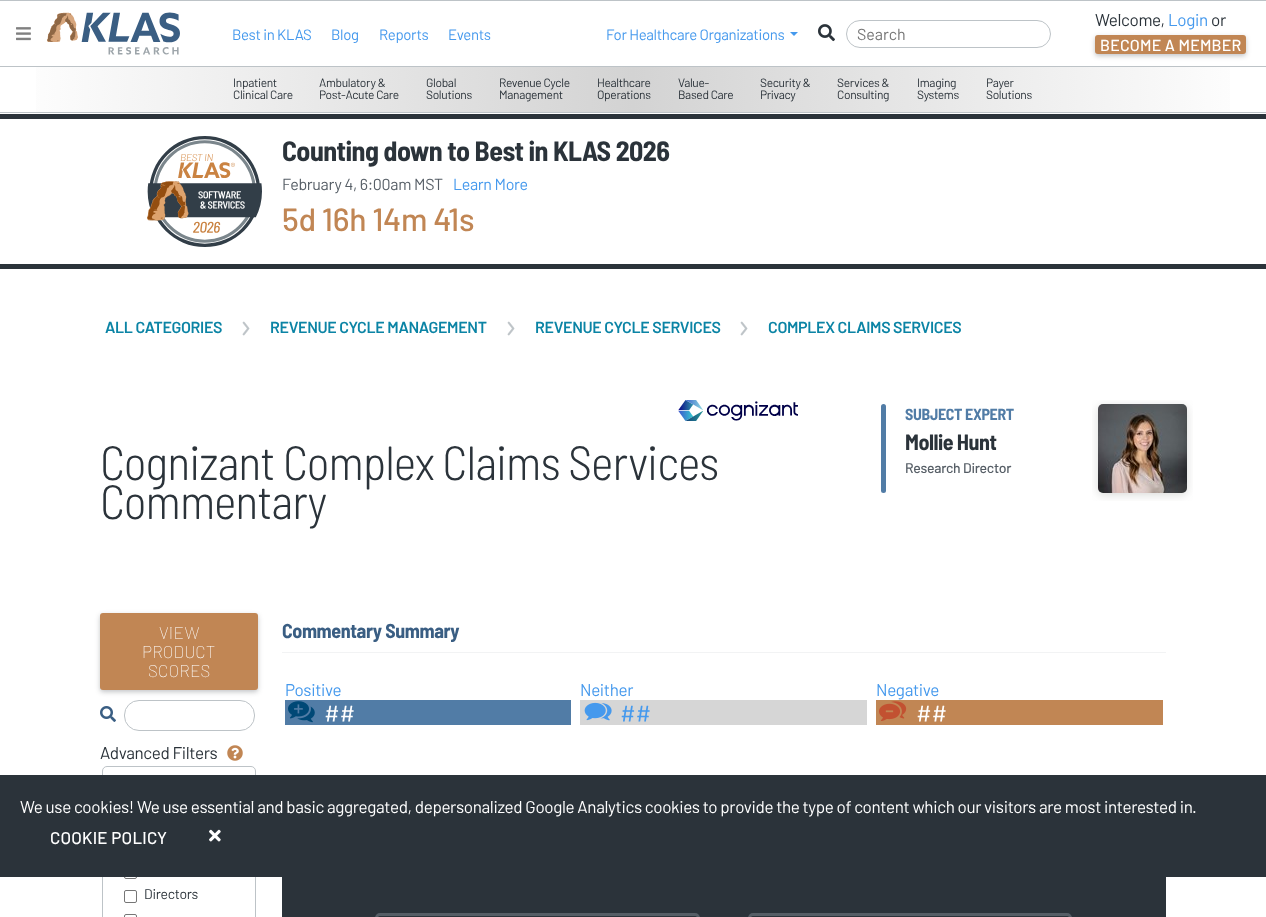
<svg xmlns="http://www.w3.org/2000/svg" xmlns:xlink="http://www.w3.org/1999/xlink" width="1266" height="917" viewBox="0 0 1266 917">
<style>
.cls-1{font:15px Barlow;letter-spacing:-0.34px;fill:#4599ed}
.cls-2{font:16px Barlow;fill:#757575}
.cls-3{font:17px Barlow;letter-spacing:-0.34px;fill:#2b333a}
.cls-4{font:17px Barlow;letter-spacing:-0.34px;fill:#4599ed}
.cls-5{font:500 16px Barlow;letter-spacing:0.2px;fill:#ffffff}
.cls-6{font:12px Barlow;letter-spacing:-0.34px;fill:#2b333a}
.cls-7{font:bold 28px Barlow Semi Condensed;letter-spacing:-0.55px;fill:#2b333a}
.cls-8{font:16px Barlow;letter-spacing:-0.3px;fill:#565e66}
.cls-9{font:16px Barlow;letter-spacing:-0.3px;fill:#4599ed}
.cls-10{font:500 32px Barlow;letter-spacing:-0.34px;fill:#c18654}
.cls-11{font:600 16px Barlow;letter-spacing:-0.34px;fill:#0b84a5}
.cls-12{font:300 48px Barlow Semi Condensed;letter-spacing:-0.95px;fill:#2b333a}
.cls-13{font:bold 16px Barlow Semi Condensed;letter-spacing:-0.3px;fill:#517ca6}
.cls-14{font:bold 22px Barlow Semi Condensed;letter-spacing:-0.5px;fill:#2b333a}
.cls-15{font:500 14px Barlow;letter-spacing:-0.25px;fill:#565e66}
.cls-16{font:100 17px Barlow;letter-spacing:0.2px;fill:#ffffff}
.cls-17{font:14px Barlow;letter-spacing:-0.25px;fill:#2b333a}
.cls-18{font:bold 20px Barlow Semi Condensed;letter-spacing:-0.4px;fill:#3a5e83}
.cls-19{font:24px Barlow;letter-spacing:-0.34px;fill:#ffffff}
.cls-20{font:24px Barlow;letter-spacing:-0.34px;fill:#4599ed}
.cls-21{font:17px Barlow;letter-spacing:-0.34px;fill:#ffffff}
.cls-22{font:500 17px Barlow;letter-spacing:0.2px;fill:#ffffff}
</style>
<defs>
<linearGradient id="g1" gradientUnits="userSpaceOnUse" x1="0" y1="90" x2="1266" y2="90"><stop offset="0" stop-color="#ffffff"/><stop offset="0.5" stop-color="#d3d3d3"/><stop offset="1" stop-color="#ffffff"/></linearGradient>
</defs>
<rect width="100%" height="100%" fill="#ffffff"/>
<rect fill="#bdc3c7" x="0" y="0" width="1266" height="1"/>
<rect fill="#bdc3c7" x="0" y="66" width="1266" height="1"/>
<image xlink:href="image0.png" x="16" y="27" width="15" height="14"/>
<image xlink:href="image1.png" x="47" y="12" width="133" height="43"/>
<path fill="#4599ed" d="M790 32H798L794 36Z"/>
<image xlink:href="image2.png" x="818" y="24" width="17" height="18"/>
<rect fill="none" stroke="#bdc3c7" x="846.5" y="20.5" width="204" height="27" rx="13.5"/>
<rect fill="#101820" fill-opacity="0.25" filter="blur(2.5px)" x="1095" y="37" width="151" height="19" rx="3"/>
<rect fill="#c18654" x="1095" y="35" width="151" height="19" rx="3"/>
<rect fill="url(#g1)" x="36" y="67" width="1194" height="45"/>
<rect fill="#bdc3c7" x="0" y="112" width="1266" height="1"/>
<rect fill="#2b333a" x="0" y="114" width="1266" height="5"/>
<image xlink:href="image3.png" x="147" y="136" width="115" height="111"/>
<rect fill="#2b333a" x="0" y="264" width="1266" height="5"/>
<image xlink:href="image4.png" x="242" y="321" width="8" height="15"/>
<image xlink:href="image4.png" x="507" y="321" width="8" height="15"/>
<image xlink:href="image4.png" x="740" y="321" width="8" height="15"/>
<image xlink:href="image5.png" x="678" y="400" width="120" height="21"/>
<rect fill="#517ca6" x="881" y="404" width="5" height="89" rx="2.5"/>
<image xlink:href="image6.png" x="1092" y="400" width="101" height="101"/>
<rect fill="#101820" fill-opacity="0.25" filter="blur(2.5px)" x="100" y="615" width="158" height="77" rx="3"/>
<rect fill="#c18654" x="100" y="613" width="158" height="77" rx="3"/>
<image xlink:href="image7.png" x="100" y="706" width="16" height="16"/>
<rect fill="none" stroke="#bdc3c7" x="124.5" y="700.5" width="130" height="30" rx="14.5"/>
<image xlink:href="image8.png" x="227" y="745" width="16" height="16"/>
<rect fill="none" stroke="#bdc3c7" x="102.5" y="766.5" width="153" height="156" rx="4.5"/>
<rect fill="none" stroke="#767676" x="124.5" y="866.5" width="12" height="12" rx="1.5"/>
<rect fill="none" stroke="#767676" x="124.5" y="890.5" width="12" height="12" rx="1.5"/>
<rect fill="none" stroke="#767676" x="124.5" y="914.5" width="12" height="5" rx="1.5"/>
<rect fill="#f2f3f4" x="282" y="652" width="884" height="1"/>
<rect fill="#517ca6" x="285" y="700" width="286" height="25"/>
<image xlink:href="image9.png" x="288" y="701" width="27" height="22"/>
<rect fill="#d6d6d6" x="580" y="700" width="287" height="25"/>
<image xlink:href="image10.png" x="584" y="702" width="28" height="19"/>
<rect fill="#c18654" x="876" y="700" width="287" height="25"/>
<image xlink:href="image11.png" x="879" y="701" width="28" height="20"/>
<rect fill="#2b333a" x="282" y="877" width="884" height="40"/>
<rect fill="none" stroke="#565e66" stroke-width="3" x="376.5" y="914.5" width="322" height="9" rx="3.5"/>
<rect fill="none" stroke="#565e66" stroke-width="3" x="749.5" y="914.5" width="321" height="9" rx="3.5"/>
<rect fill="#2b333a" x="0" y="775" width="1266" height="102"/>
<image xlink:href="image12.png" x="209" y="829" width="12" height="13"/>
<text class="cls-1" x="232" y="40">Best in KLAS</text>
<text class="cls-1" x="331" y="40">Blog</text>
<text class="cls-1" x="379" y="40">Reports</text>
<text class="cls-1" x="448" y="40">Events</text>
<text class="cls-1" x="606" y="40">For Healthcare Organizations</text>
<text class="cls-2" x="857" y="40">Search</text>
<text class="cls-3" x="1095" y="26">Welcome,</text>
<text class="cls-4" x="1168" y="26">Login</text>
<text class="cls-3" x="1211" y="26">or</text>
<text class="cls-5" x="1100" y="51">BECOME A MEMBER</text>
<text class="cls-6"><tspan x="233" y="87">Inpatient</tspan><tspan x="233" y="99">Clinical Care</tspan></text>
<text class="cls-6"><tspan x="319" y="87">Ambulatory &amp;</tspan><tspan x="319" y="99">Post-Acute Care</tspan></text>
<text class="cls-6"><tspan x="426" y="87">Global</tspan><tspan x="426" y="99">Solutions</tspan></text>
<text class="cls-6"><tspan x="499" y="87">Revenue Cycle</tspan><tspan x="499" y="99">Management</tspan></text>
<text class="cls-6"><tspan x="597" y="87">Healthcare</tspan><tspan x="597" y="99">Operations</tspan></text>
<text class="cls-6"><tspan x="678" y="87">Value-</tspan><tspan x="678" y="99">Based Care</tspan></text>
<text class="cls-6"><tspan x="760" y="87">Security &amp;</tspan><tspan x="760" y="99">Privacy</tspan></text>
<text class="cls-6"><tspan x="837" y="87">Services &amp;</tspan><tspan x="837" y="99">Consulting</tspan></text>
<text class="cls-6"><tspan x="917" y="87">Imaging</tspan><tspan x="917" y="99">Systems</tspan></text>
<text class="cls-6"><tspan x="986" y="87">Payer</tspan><tspan x="986" y="99">Solutions</tspan></text>
<text class="cls-7" x="282" y="161">Counting down to Best in KLAS 2026</text>
<text class="cls-8" x="282" y="190">February 4, 6:00am MST</text>
<text class="cls-9" x="453" y="190">Learn More</text>
<text class="cls-10" x="282" y="231">5d 16h 14m 41s</text>
<text class="cls-11" x="105" y="333">ALL CATEGORIES</text>
<text class="cls-11" x="270" y="333">REVENUE CYCLE MANAGEMENT</text>
<text class="cls-11" x="535" y="333">REVENUE CYCLE SERVICES</text>
<text class="cls-11" x="768" y="333">COMPLEX CLAIMS SERVICES</text>
<text class="cls-12"><tspan x="100" y="480">Cognizant Complex Claims Services</tspan><tspan x="100" y="519">Commentary</tspan></text>
<text class="cls-13" x="905" y="420">SUBJECT EXPERT</text>
<text class="cls-14" x="905" y="450">Mollie Hunt</text>
<text class="cls-15" x="905" y="473">Research Director</text>
<text class="cls-16" x="159" y="639">VIEW</text>
<text class="cls-16" x="142" y="658">PRODUCT</text>
<text class="cls-16" x="148" y="677">SCORES</text>
<text class="cls-3" x="100" y="759">Advanced Filters</text>
<text class="cls-17" x="144" y="899">Directors</text>
<text class="cls-18" x="282" y="638">Commentary Summary</text>
<text class="cls-4" x="285" y="696">Positive</text>
<text class="cls-19" x="324" y="722">##</text>
<text class="cls-4" x="580" y="696">Neither</text>
<text class="cls-20" x="620" y="722">##</text>
<text class="cls-4" x="876" y="696">Negative</text>
<text class="cls-19" x="916" y="722">##</text>
<text class="cls-21" x="20" y="813">We use cookies! We use essential and basic aggregated, depersonalized Google Analytics cookies to provide the type of content which our visitors are most interested in.</text>
<text class="cls-22" x="50" y="844">COOKIE POLICY</text>
</svg>
